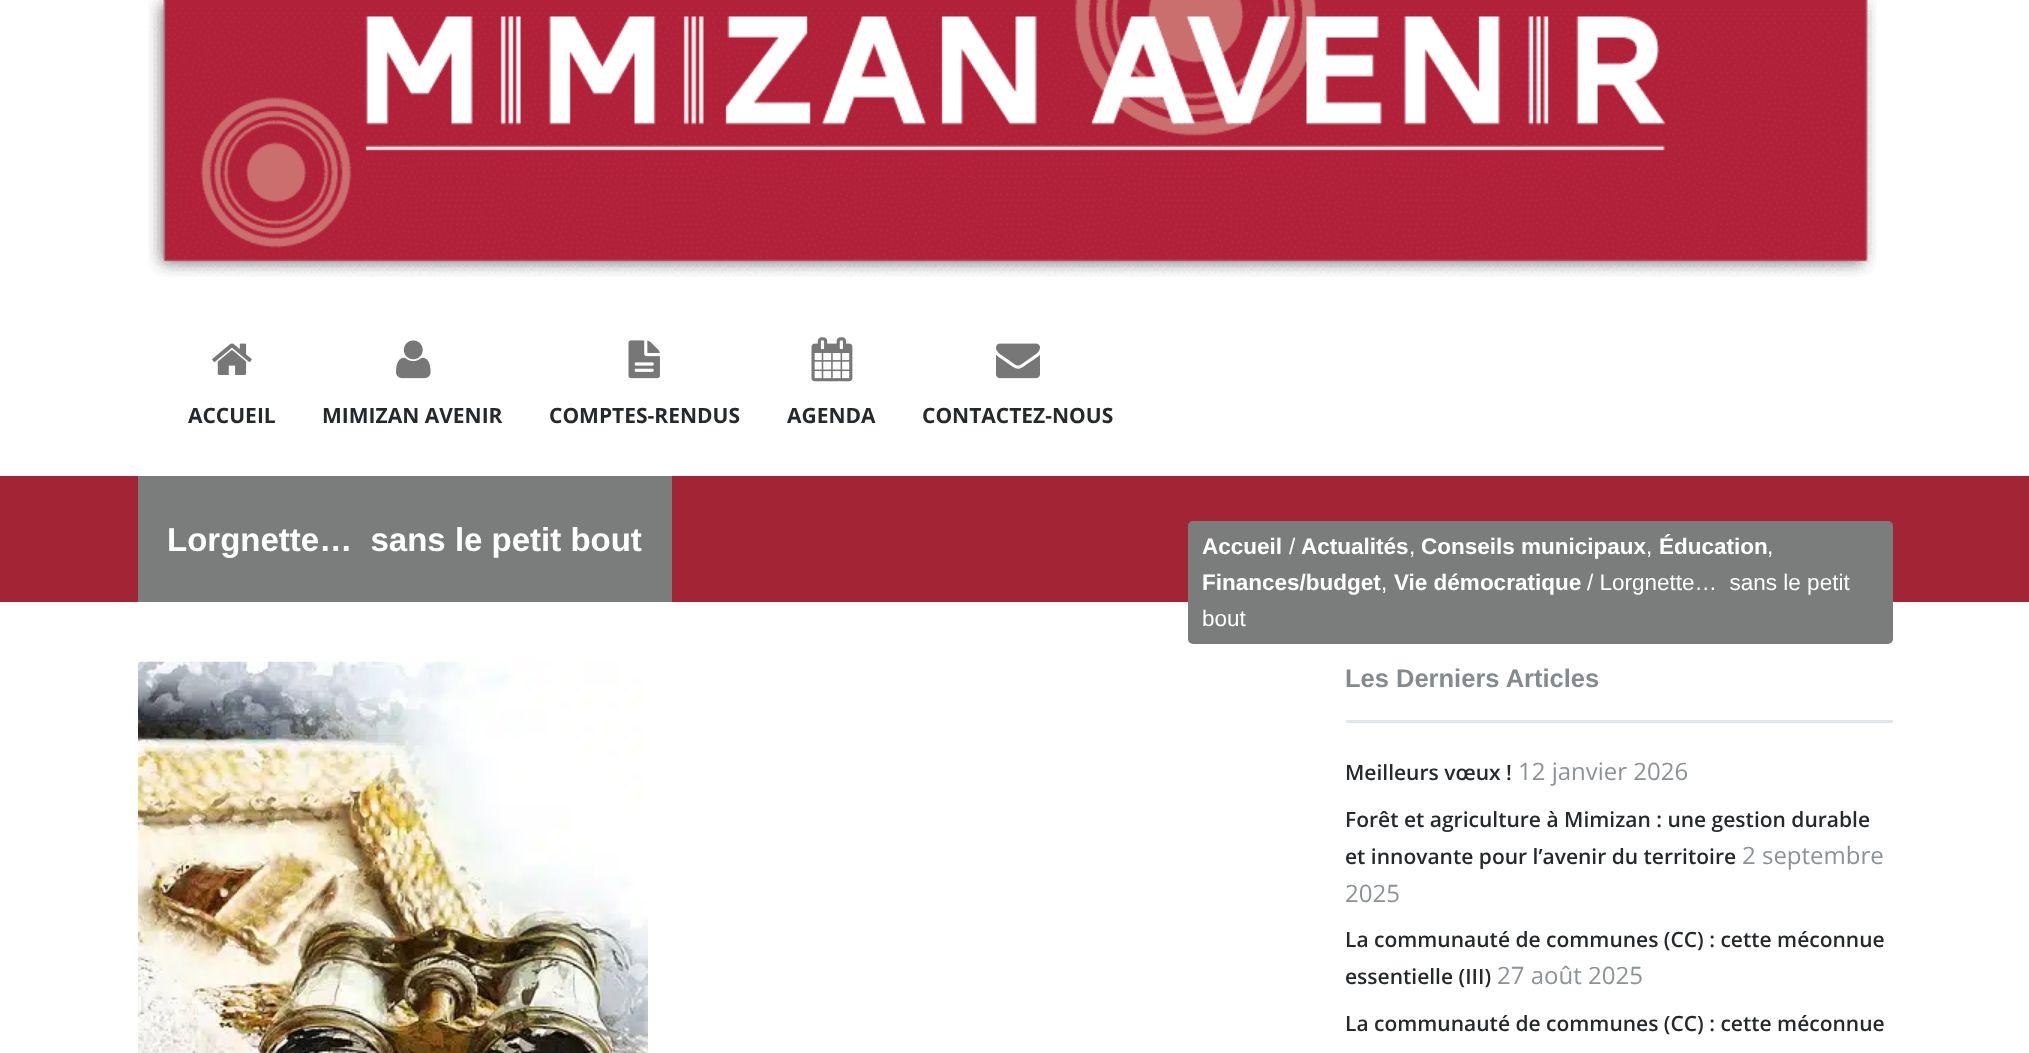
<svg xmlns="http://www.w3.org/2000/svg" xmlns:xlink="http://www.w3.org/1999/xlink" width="2029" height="1053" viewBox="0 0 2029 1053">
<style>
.cls-1{font:bold 21px Open Sans;fill:#25292b}
.cls-2{font:bold 33px Liberation Sans;fill:#ffffff}
.cls-3{font:bold 22.5px Liberation Sans;fill:#ffffff}
.cls-4{font:22.5px Liberation Sans;fill:#ffffff}
.cls-5{font:bold 25.5px Liberation Sans;fill:#848b8f}
.cls-6{font:600 21px Open Sans;fill:#25292b}
.cls-7{font:24px Open Sans;fill:#8c9295}
</style>
<rect width="100%" height="100%" fill="#ffffff"/>
<image xlink:href="image0.png" x="148" y="0" width="1729" height="277"/>
<image xlink:href="image1.png" x="212" y="343" width="40" height="32"/>
<image xlink:href="image2.png" x="396" y="340" width="35" height="39"/>
<image xlink:href="image3.png" x="628" y="340" width="32" height="39"/>
<image xlink:href="image4.png" x="811" y="337" width="42" height="45"/>
<image xlink:href="image5.png" x="996" y="343" width="44" height="36"/>
<rect fill="#a32535" x="0" y="476" width="2029" height="126"/>
<rect fill="#7b7c7c" x="138" y="476" width="534" height="126"/>
<rect fill="#7b7c7c" x="1188" y="521" width="705" height="123" rx="5"/>
<image xlink:href="image6.png" x="138" y="661" width="510" height="392"/>
<rect fill="#e1e6e9" x="1346" y="720" width="547" height="3"/>
<text class="cls-1" x="188" y="423">ACCUEIL</text>
<text class="cls-1" x="322" y="423">MIMIZAN AVENIR</text>
<text class="cls-1" x="549" y="423">COMPTES-RENDUS</text>
<text class="cls-1" x="787" y="423">AGENDA</text>
<text class="cls-1" x="922" y="423">CONTACTEZ-NOUS</text>
<text class="cls-2" xml:space="preserve" x="167" y="551">Lorgnette…  sans le petit bout</text>
<text class="cls-3" x="1202" y="554">Accueil</text>
<text class="cls-4" x="1289" y="554">/</text>
<text class="cls-3" x="1301" y="554">Actualités</text>
<text class="cls-4" x="1409" y="554">,</text>
<text class="cls-3" x="1421" y="554">Conseils municipaux</text>
<text class="cls-4" x="1646" y="554">,</text>
<text class="cls-3" x="1659" y="554">Éducation</text>
<text class="cls-4" x="1767" y="554">,</text>
<text class="cls-3" x="1202" y="590">Finances/budget</text>
<text class="cls-4" x="1381" y="590">,</text>
<text class="cls-3" x="1394" y="590">Vie démocratique</text>
<text class="cls-4" xml:space="preserve" x="1587" y="590">/ Lorgnette…  sans le petit</text>
<text class="cls-4" x="1202" y="626">bout</text>
<text class="cls-5" x="1345" y="687">Les Derniers Articles</text>
<text class="cls-6" x="1345" y="780">Meilleurs vœux !</text>
<text class="cls-7" x="1518" y="780">12 janvier 2026</text>
<text class="cls-6"><tspan x="1345" y="827">Forêt et agriculture à Mimizan : une gestion durable</tspan><tspan x="1345" y="864">et innovante pour l’avenir du territoire</tspan></text>
<text class="cls-7" x="1742" y="864">2 septembre</text>
<text class="cls-7" x="1345" y="902">2025</text>
<text class="cls-6"><tspan x="1345" y="947">La communauté de communes (CC) : cette méconnue</tspan><tspan x="1345" y="984">essentielle (III)</tspan></text>
<text class="cls-7" x="1497" y="984">27 août 2025</text>
<text class="cls-6" x="1345" y="1031">La communauté de communes (CC) : cette méconnue</text>
</svg>
